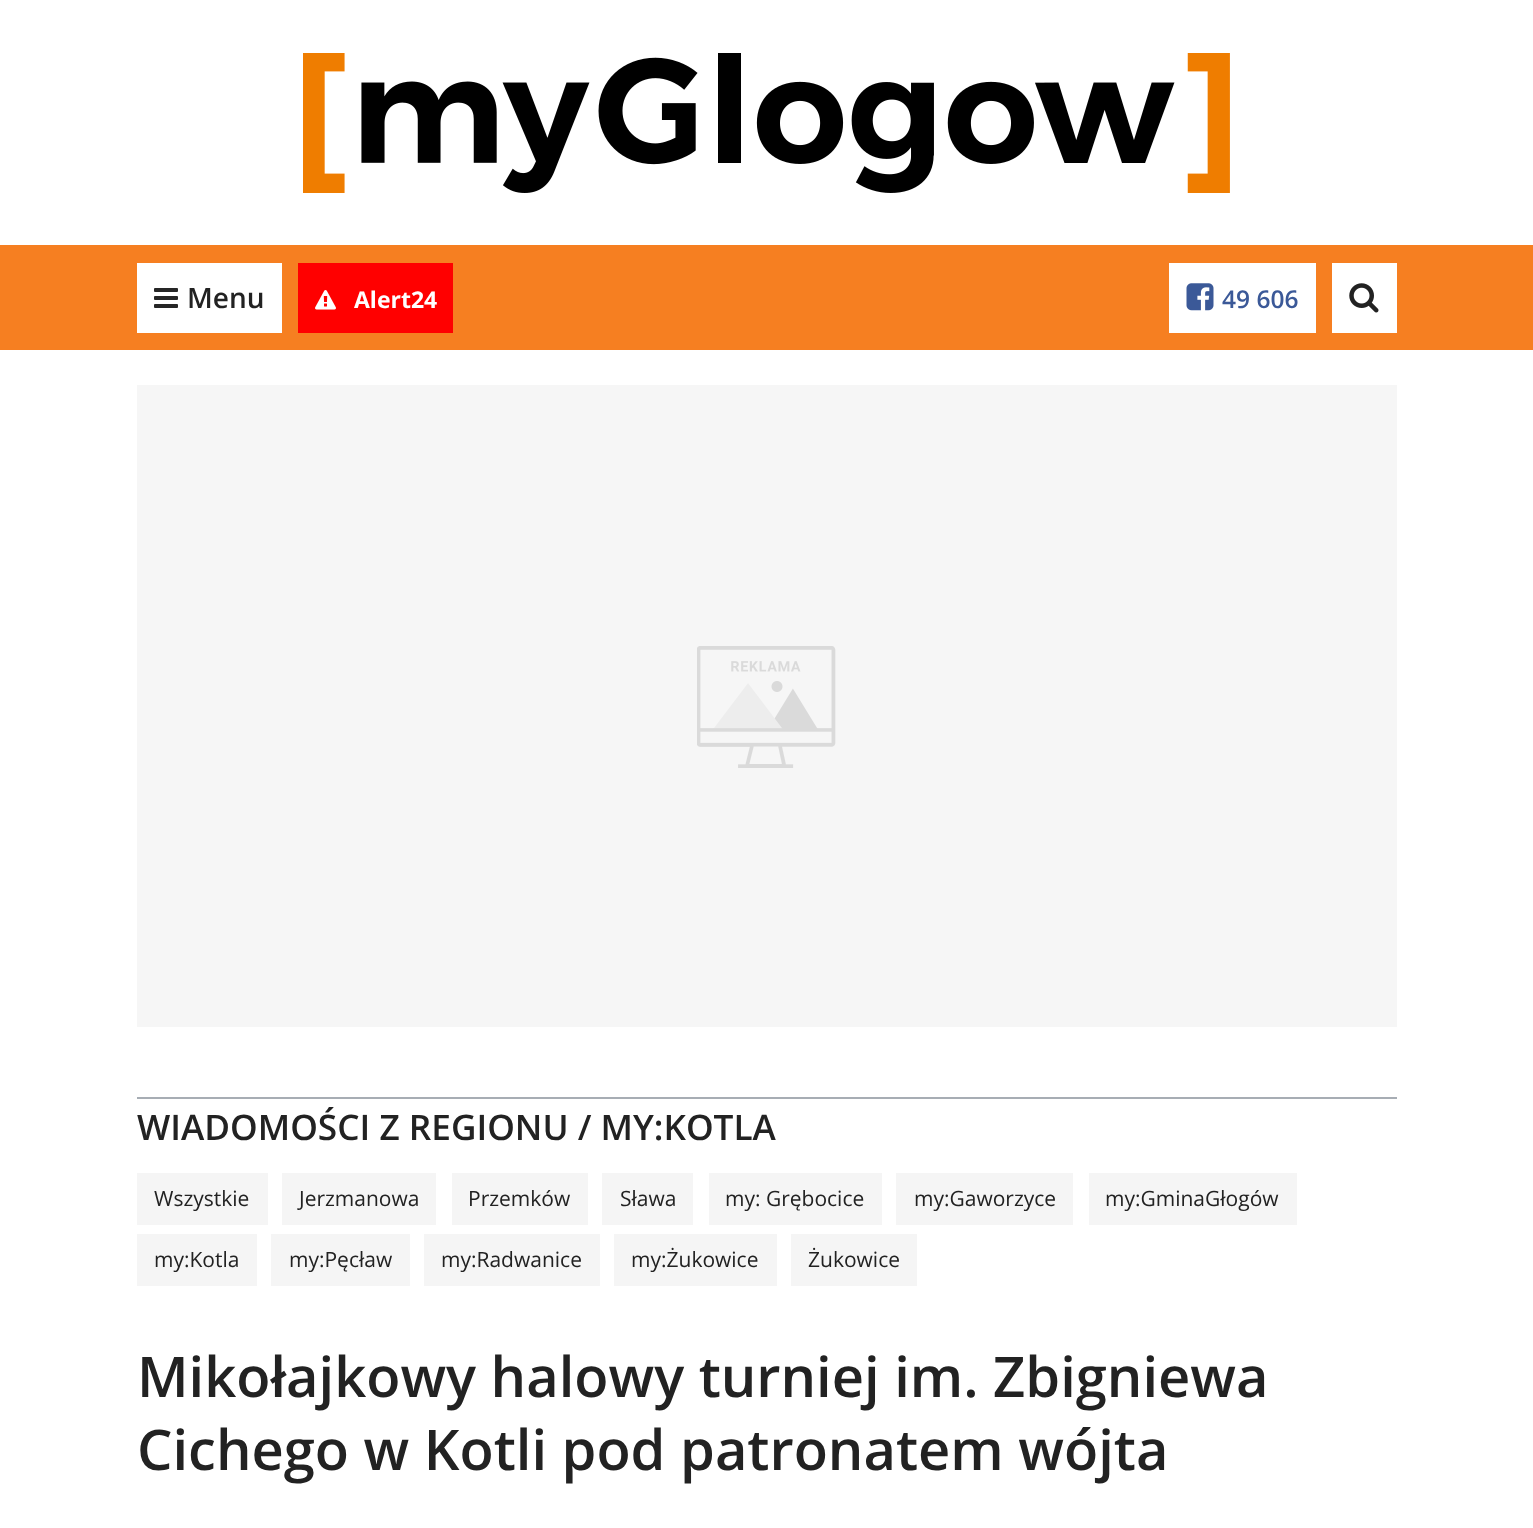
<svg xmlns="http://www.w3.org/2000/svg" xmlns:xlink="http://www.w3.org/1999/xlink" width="1533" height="1528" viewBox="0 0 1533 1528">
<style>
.cls-1{font:600 28px Open Sans;fill:#222222}
.cls-2{font:bold 23px Open Sans;fill:#ffffff}
.cls-3{font:600 24.5px Open Sans;fill:#3b5998}
.cls-4{font:600 35.2px Open Sans;fill:#222222}
.cls-5{font:21px Open Sans;fill:#222222}
.cls-6{font:600 56px Open Sans;fill:#222222}
</style>
<rect width="100%" height="100%" fill="#ffffff"/>
<image xlink:href="image0.png" x="303" y="53" width="927" height="140"/>
<rect fill="#f67f21" x="0" y="245" width="1533" height="105"/>
<rect fill="#ffffff" x="137" y="263" width="145" height="70"/>
<image xlink:href="image1.png" x="154" y="288" width="24" height="20"/>
<rect fill="#ff0000" x="298" y="263" width="155" height="70"/>
<image xlink:href="image2.png" x="315" y="290" width="21" height="20"/>
<rect fill="#ffffff" x="1169" y="263" width="147" height="70"/>
<image xlink:href="image3.png" x="1186" y="283" width="28" height="28"/>
<rect fill="#ffffff" x="1332" y="263" width="65" height="70"/>
<image xlink:href="image4.png" x="1349" y="283" width="30" height="30"/>
<rect fill="#f6f6f6" x="137" y="385" width="1260" height="642"/>
<image xlink:href="image5.png" x="697" y="646" width="139" height="122"/>
<rect fill="#a7adb4" x="137" y="1097" width="1260" height="2"/>
<rect fill="#f5f5f5" x="137" y="1173" width="131" height="52"/>
<rect fill="#f5f5f5" x="282" y="1173" width="154" height="52"/>
<rect fill="#f5f5f5" x="452" y="1173" width="136" height="52"/>
<rect fill="#f5f5f5" x="602" y="1173" width="91" height="52"/>
<rect fill="#f5f5f5" x="709" y="1173" width="173" height="52"/>
<rect fill="#f5f5f5" x="896" y="1173" width="177" height="52"/>
<rect fill="#f5f5f5" x="1089" y="1173" width="208" height="52"/>
<rect fill="#f5f5f5" x="137" y="1234" width="120" height="52"/>
<rect fill="#f5f5f5" x="271" y="1234" width="139" height="52"/>
<rect fill="#f5f5f5" x="424" y="1234" width="176" height="52"/>
<rect fill="#f5f5f5" x="614" y="1234" width="163" height="52"/>
<rect fill="#f5f5f5" x="791" y="1234" width="126" height="52"/>
<text class="cls-1" x="187" y="308">Menu</text>
<text class="cls-2" x="354" y="308">Alert24</text>
<text class="cls-3" x="1222" y="308">49 606</text>
<text class="cls-4" x="137" y="1140">WIADOMOŚCI Z REGIONU / MY:KOTLA</text>
<text class="cls-5" x="154" y="1206">Wszystkie</text>
<text class="cls-5" x="299" y="1206">Jerzmanowa</text>
<text class="cls-5" x="468" y="1206">Przemków</text>
<text class="cls-5" x="620" y="1206">Sława</text>
<text class="cls-5" x="725" y="1206">my: Grębocice</text>
<text class="cls-5" x="914" y="1206">my:Gaworzyce</text>
<text class="cls-5" x="1105" y="1206">my:GminaGłogów</text>
<text class="cls-5" x="154" y="1267">my:Kotla</text>
<text class="cls-5" x="289" y="1267">my:Pęcław</text>
<text class="cls-5" x="441" y="1267">my:Radwanice</text>
<text class="cls-5" x="631" y="1267">my:Żukowice</text>
<text class="cls-5" x="808" y="1267">Żukowice</text>
<text class="cls-6"><tspan x="137" y="1397">Mikołajkowy halowy turniej im. Zbigniewa</tspan><tspan x="137" y="1470">Cichego w Kotli pod patronatem wójta</tspan></text>
</svg>
